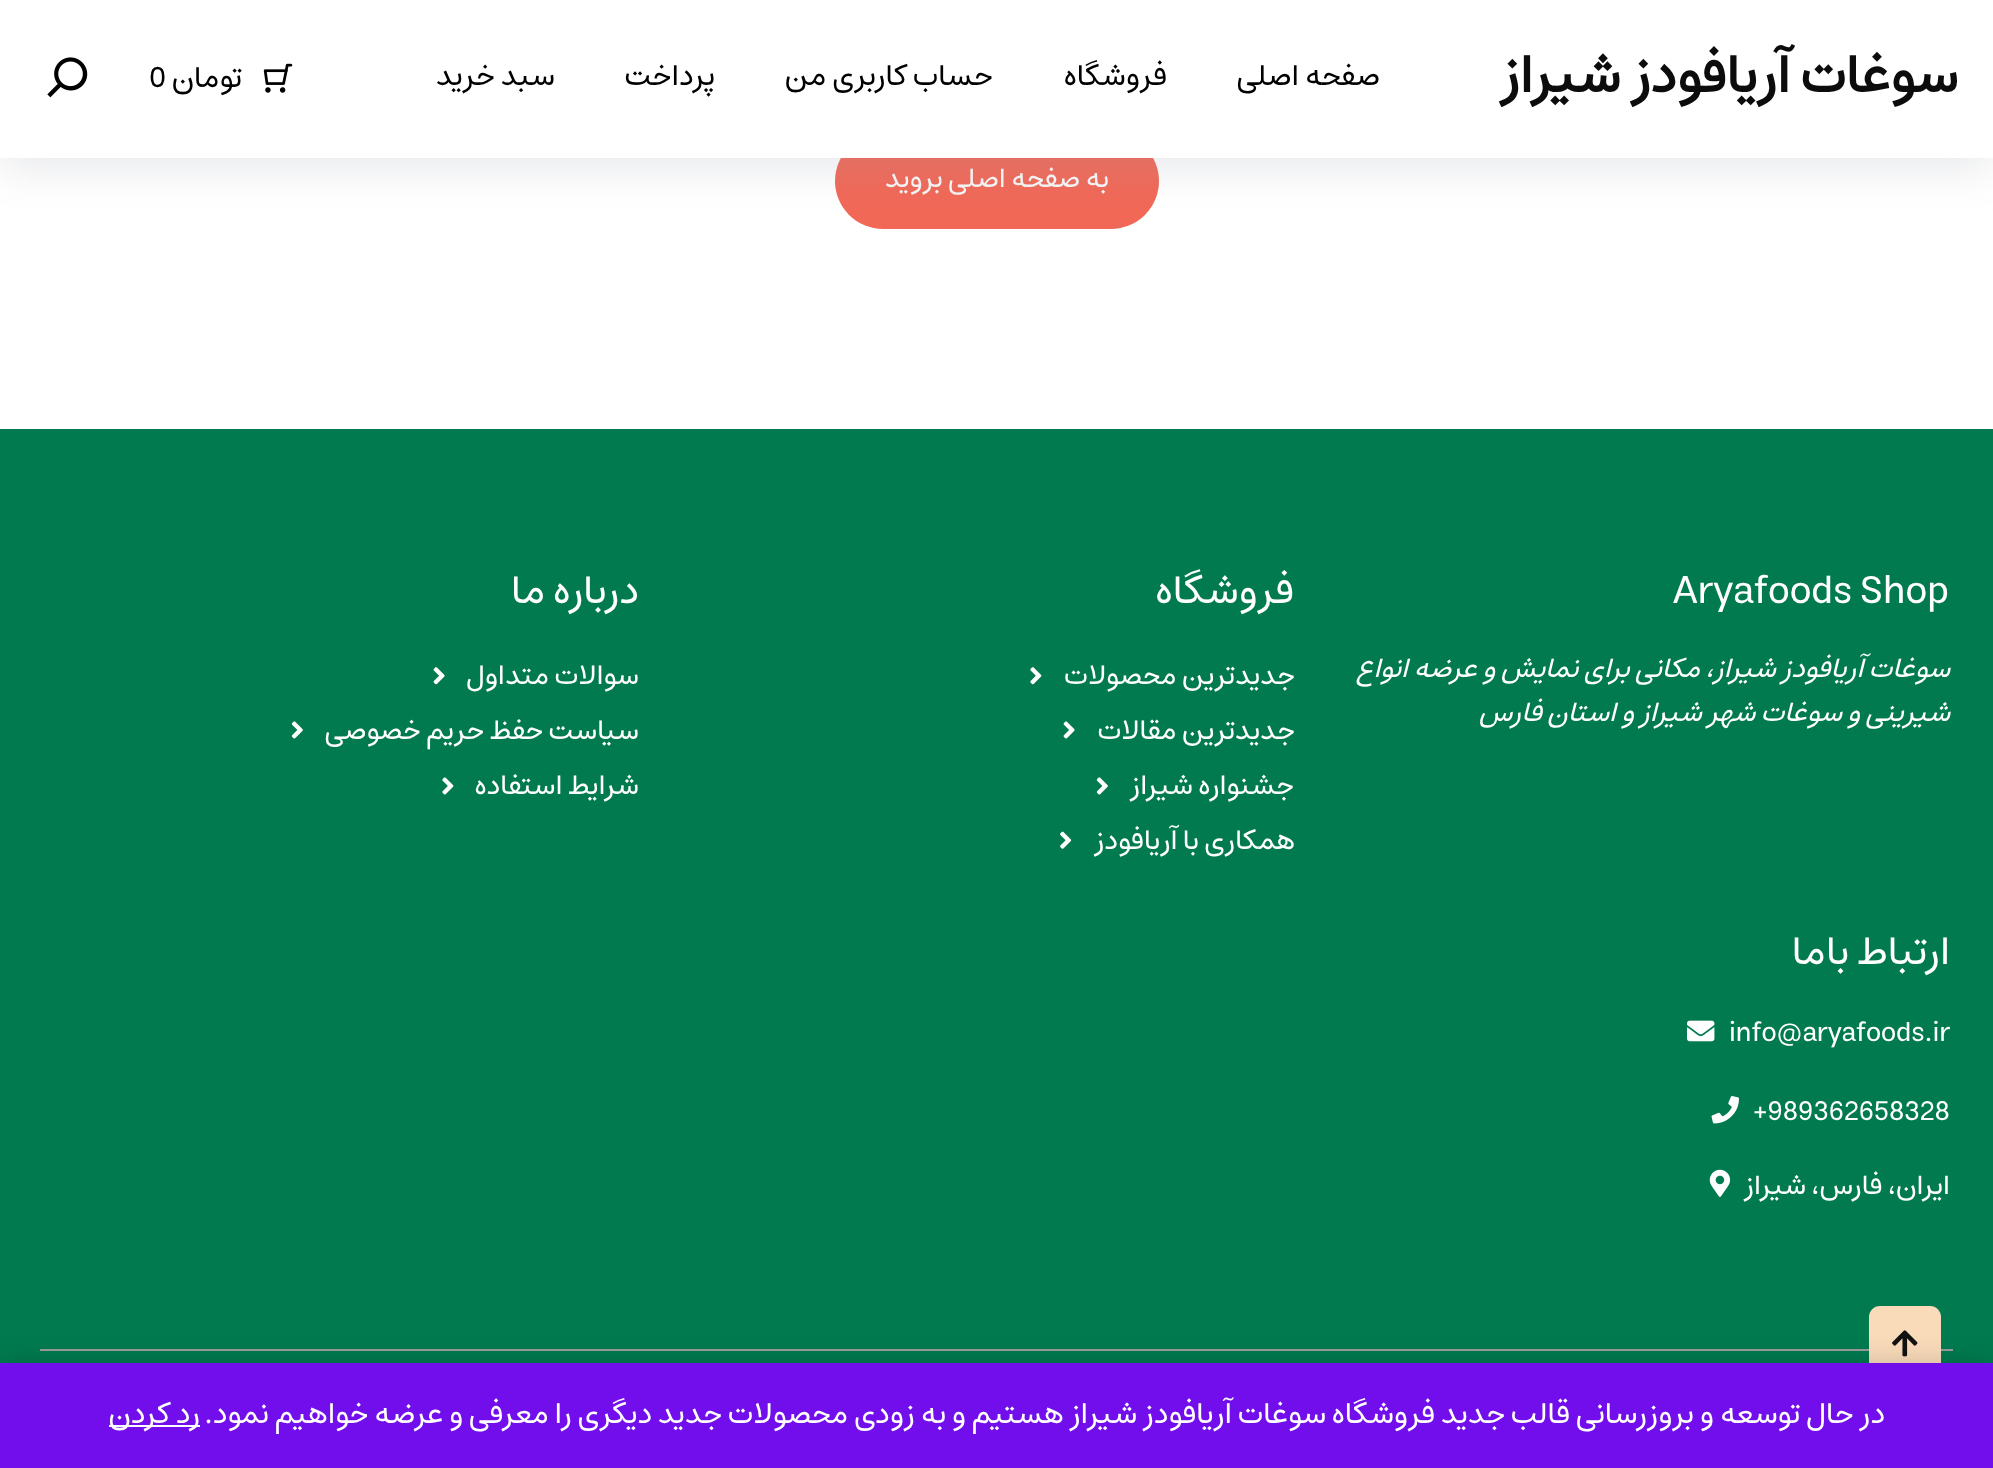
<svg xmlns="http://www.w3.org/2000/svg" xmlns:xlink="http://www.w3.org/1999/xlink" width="1993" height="1468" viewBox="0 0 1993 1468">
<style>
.cls-1{font:bold 52.5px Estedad;direction:rtl;fill:#0c0c0c}
.cls-2{font:29.4px Estedad;direction:rtl;fill:#000000}
.cls-3{font:29.4px Estedad;fill:#000000}
.cls-4{font:27.1px Estedad;direction:rtl;fill:#f2f2f2}
.cls-5{font:39.5px Estedad;fill:#ffffff}
.cls-6{font:italic 27.1px Estedad;direction:rtl;fill:#ffffff}
.cls-7{font:39.5px Estedad;direction:rtl;fill:#ffffff}
.cls-8{font:27.5px Estedad;direction:rtl;fill:#ffffff}
.cls-9{font:27.5px Estedad;fill:#ffffff}
.cls-10{font:27.1px Estedad;direction:rtl;fill:#ffffff}
.cls-11{font:29.4px Estedad;direction:rtl;fill:#ffffff}
</style>
<rect width="100%" height="100%" fill="#ffffff"/>
<rect fill="#f16857" x="835" y="133" width="324" height="96" rx="48"/>
<rect fill="#959da5" fill-opacity="0.2" filter="blur(21px)" x="0" y="14" width="1993" height="158"/>
<rect fill="#ffffff" x="0" y="0" width="1993" height="158"/>
<image xlink:href="image0.png" x="263" y="63" width="30" height="30"/>
<image xlink:href="image1.png" x="47" y="57" width="41" height="41"/>
<rect fill="#017a4f" x="0" y="429" width="1993" height="934"/>
<image xlink:href="image2.png" x="1030" y="667" width="12" height="18"/>
<image xlink:href="image3.png" x="1063" y="721" width="12" height="18"/>
<image xlink:href="image4.png" x="1096" y="777" width="12" height="18"/>
<image xlink:href="image5.png" x="1060" y="831" width="12" height="18"/>
<image xlink:href="image6.png" x="433" y="667" width="12" height="18"/>
<image xlink:href="image4.png" x="291" y="721" width="12" height="18"/>
<image xlink:href="image7.png" x="442" y="777" width="12" height="18"/>
<image xlink:href="image8.png" x="1687" y="1020" width="28" height="22"/>
<image xlink:href="image9.png" x="1711" y="1096" width="28" height="28"/>
<image xlink:href="image10.png" x="1709" y="1169" width="22" height="28"/>
<rect fill="#9b9b9b" x="40" y="1349" width="1913" height="2"/>
<rect fill="#f9dbba" x="1869" y="1306" width="72" height="75" rx="11"/>
<image xlink:href="image11.png" x="1892" y="1330" width="26" height="27"/>
<rect fill="#000000" fill-opacity="0.2" filter="blur(14.5px)" x="0" y="1365" width="1993" height="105"/>
<rect fill="#720eec" x="0" y="1363" width="1993" height="105"/>
<rect fill="#fcfbfe" x="109" y="1425" width="91" height="2"/>
<text class="cls-1" x="1958" y="92">سوغات آریافودز شیراز</text>
<text class="cls-2" x="1380" y="85">صفحه اصلی</text>
<text class="cls-2" x="1167" y="85">فروشگاه</text>
<text class="cls-2" x="993" y="85">حساب کاربری من</text>
<text class="cls-2" x="715" y="85">پرداخت</text>
<text class="cls-2" x="555" y="85">سبد خرید</text>
<text class="cls-2" x="242" y="87">تومان</text>
<text class="cls-3" x="149" y="87">0</text>
<text class="cls-4" x="1109" y="187">به صفحه اصلی بروید</text>
<text class="cls-5" x="1673" y="603">Aryafoods Shop</text>
<text class="cls-6"><tspan x="1950" y="677">سوغات آریافودز شیراز، مکانی برای نمایش و عرضه انواع</tspan><tspan x="1950" y="721">شیرینی و سوغات شهر شیراز و استان فارس</tspan></text>
<text class="cls-7" x="1294" y="603">فروشگاه</text>
<text class="cls-8" x="1295" y="684">جدیدترین محصولات</text>
<text class="cls-8" x="1295" y="739">جدیدترین مقالات</text>
<text class="cls-8" x="1294" y="794">جشنواره شیراز</text>
<text class="cls-8" x="1295" y="849">همکاری با آریافودز</text>
<text class="cls-7" x="639" y="603">درباره ما</text>
<text class="cls-8" x="639" y="684">سوالات متداول</text>
<text class="cls-8" x="639" y="739">سیاست حفظ حریم خصوصی</text>
<text class="cls-8" x="639" y="794">شرایط استفاده</text>
<text class="cls-7" x="1950" y="964">ارتباط باما</text>
<text class="cls-9" x="1729" y="1041">info@aryafoods.ir</text>
<text class="cls-9" x="1753" y="1120">+989362658328</text>
<text class="cls-10" x="1950" y="1194">ایران، فارس، شیراز</text>
<text class="cls-11" x="1885" y="1423">در حال توسعه و بروزرسانی قالب جدید فروشگاه سوغات آریافودز شیراز هستیم و به زودی محصولات جدید دیگری را معرفی و عرضه خواهیم نمود.</text>
<text class="cls-11" x="200" y="1423">رد کردن</text>
</svg>
